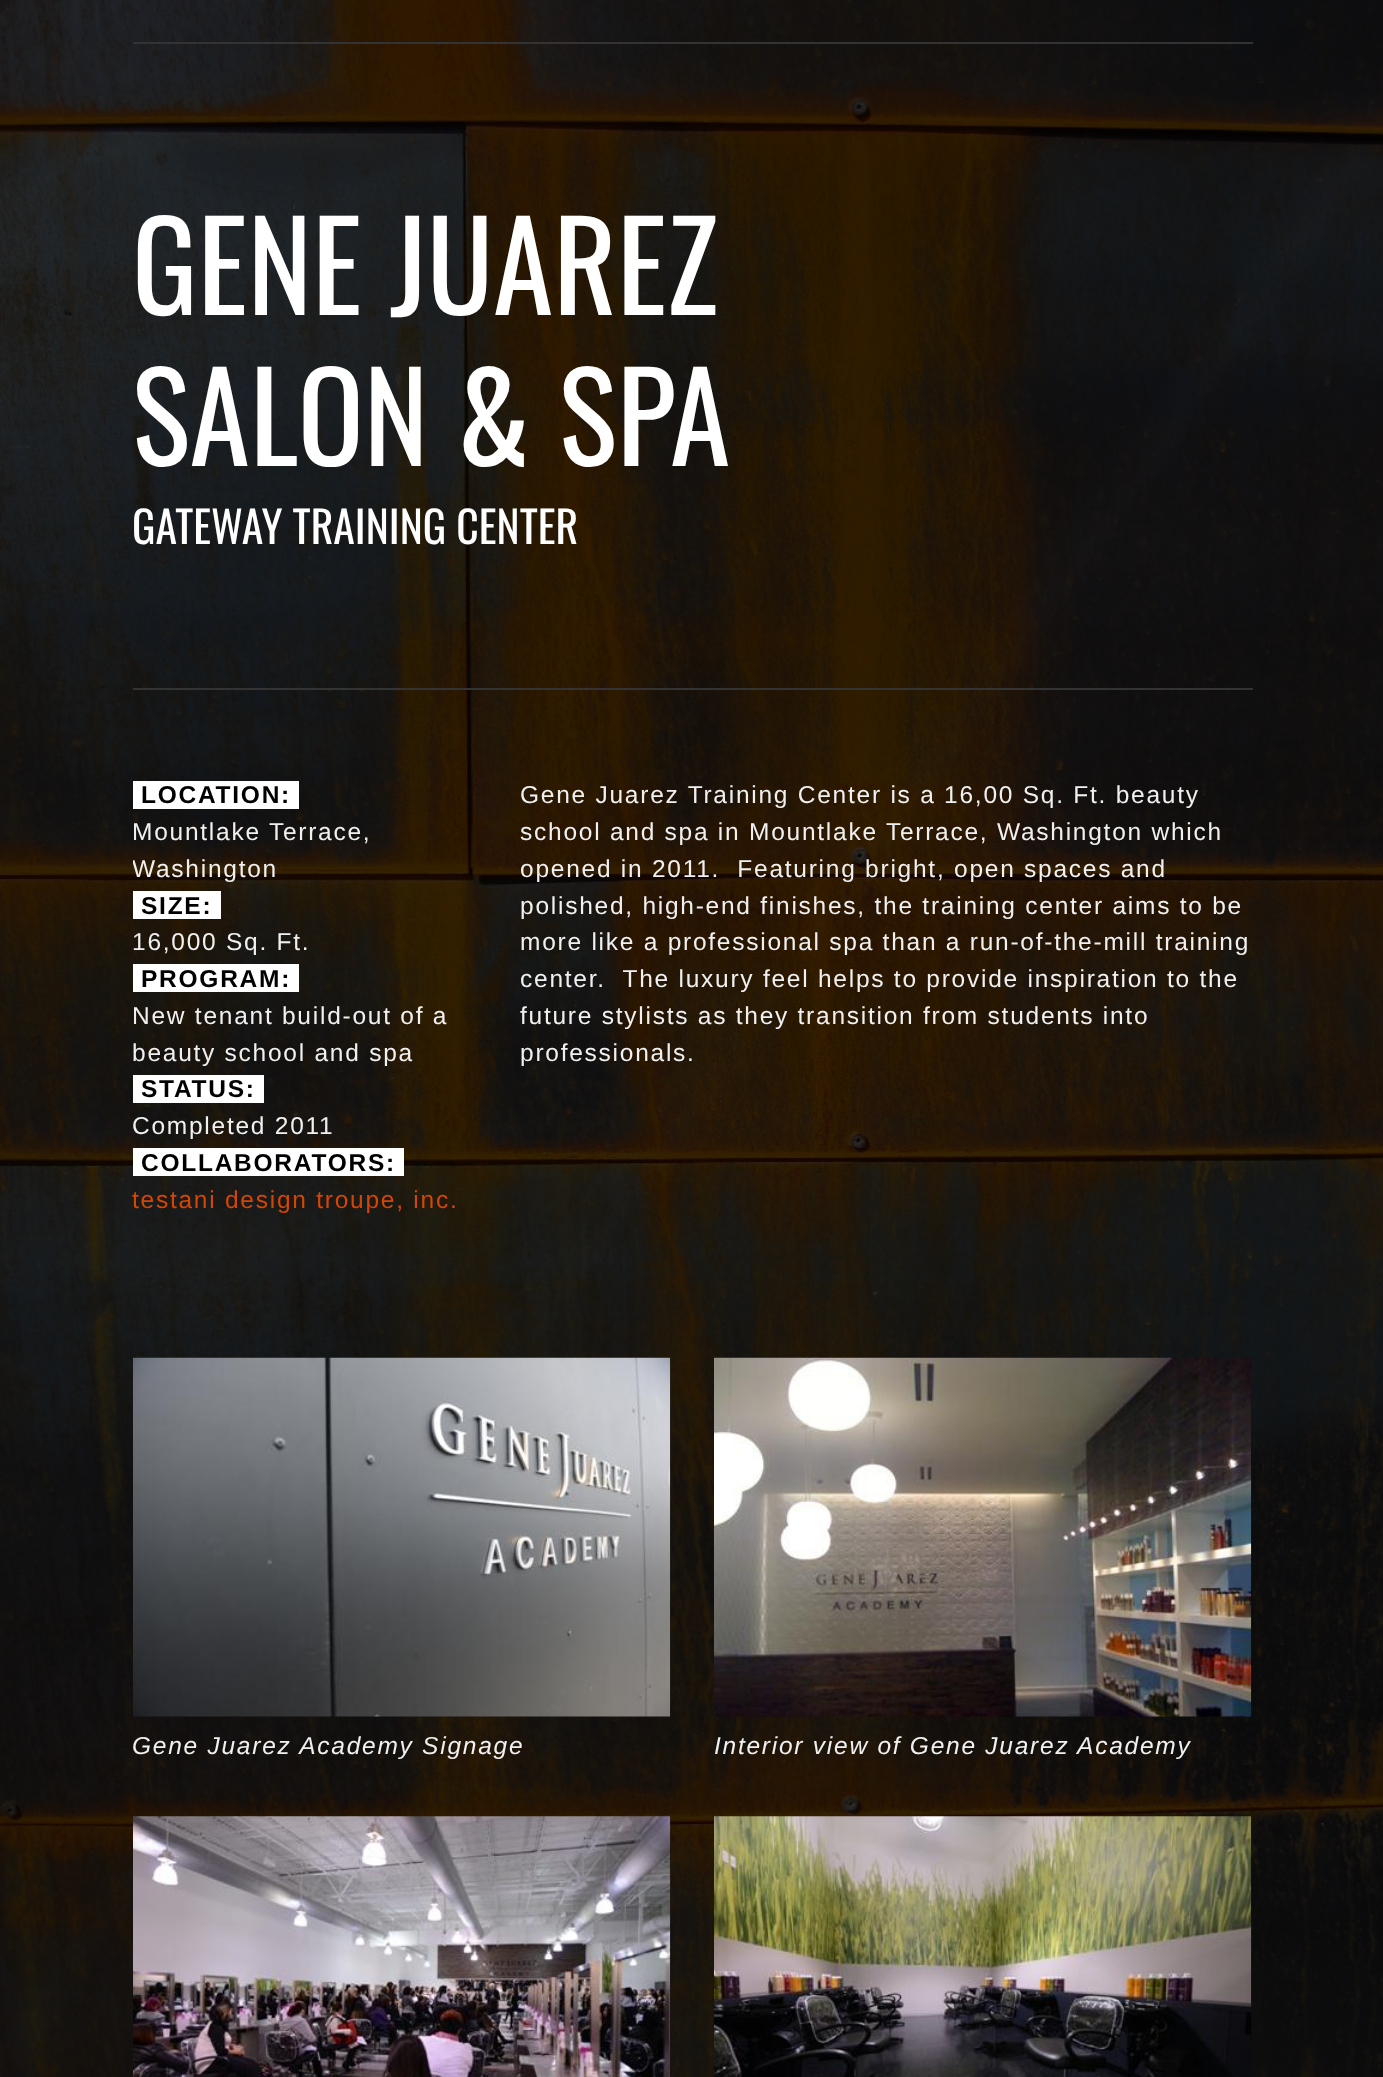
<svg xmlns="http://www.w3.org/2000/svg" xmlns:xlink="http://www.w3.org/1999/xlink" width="1383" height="2077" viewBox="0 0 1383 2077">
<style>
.cls-1{font:122.5px Oswald;fill:#ffffff}
.cls-2{font:43.75px Oswald;fill:#ffffff}
.cls-3{font:bold 24.5px Liberation Sans;letter-spacing:1.75px;fill:#000000}
.cls-4{font:24.5px Liberation Sans;letter-spacing:1.75px;fill:#f0f0f0}
.cls-5{font:24.5px Liberation Sans;letter-spacing:1.75px;fill:#d44604}
.cls-6{font:italic 24.5px Liberation Sans;letter-spacing:1.75px;fill:#f0f0f0}
</style>
<defs>
<clipPath id="clip1"><rect x="133" y="777" width="343" height="441"/></clipPath>
</defs>
<rect width="100%" height="100%" fill="#000000"/>
<image xlink:href="image0.png" x="0" y="0" width="1383" height="2077"/>
<rect fill="#333333" x="133" y="42" width="1120" height="2"/>
<rect fill="#333333" x="133" y="688" width="1120" height="2"/>
<rect fill="#ffffff" x="133" y="781" width="166" height="28"/>
<rect fill="#ffffff" x="133" y="891" width="88" height="28"/>
<rect fill="#ffffff" x="133" y="964" width="166" height="28"/>
<rect fill="#ffffff" x="133" y="1075" width="131" height="28"/>
<rect fill="#ffffff" x="133" y="1148" width="271" height="28"/>
<image xlink:href="image1.png" x="133" y="1357" width="538" height="360"/>
<image xlink:href="image2.png" x="133" y="1816" width="538" height="261"/>
<image xlink:href="image3.png" x="714" y="1357" width="538" height="360"/>
<image xlink:href="image4.png" x="714" y="1816" width="538" height="261"/>
<text class="cls-1"><tspan x="132" y="315">GENE JUAREZ</tspan><tspan x="132" y="466">SALON &amp; SPA</tspan></text>
<text class="cls-2" x="132" y="544">GATEWAY TRAINING CENTER</text>
<text class="cls-3" x="141" y="803">LOCATION:</text>
<text class="cls-4" x="132" y="840">Mountlake Terrace,</text>
<g clip-path="url(#clip1)">
<text class="cls-4" x="132" y="877">Washington</text>
</g>
<text class="cls-3" x="141" y="914">SIZE:</text>
<text class="cls-4" x="132" y="950">16,000 Sq. Ft.</text>
<text class="cls-3" x="141" y="987">PROGRAM:</text>
<text class="cls-4"><tspan x="132" y="1024">New tenant build-out of a</tspan><tspan x="132" y="1061">beauty school and spa</tspan></text>
<text class="cls-3" x="141" y="1097">STATUS:</text>
<text class="cls-4" x="132" y="1134">Completed 2011</text>
<text class="cls-3" x="141" y="1171">COLLABORATORS:</text>
<text class="cls-5" x="132" y="1208">testani design troupe, inc.</text>
<text class="cls-4" xml:space="preserve"><tspan x="520" y="803">Gene Juarez Training Center is a 16,00 Sq. Ft. beauty</tspan><tspan x="520" y="840">school and spa in Mountlake Terrace, Washington which</tspan><tspan x="520" y="877">opened in 2011.  Featuring bright, open spaces and</tspan><tspan x="520" y="914">polished, high-end finishes, the training center aims to be</tspan><tspan x="520" y="950">more like a professional spa than a run-of-the-mill training</tspan><tspan x="520" y="987">center.  The luxury feel helps to provide inspiration to the</tspan><tspan x="520" y="1024">future stylists as they transition from students into</tspan><tspan x="520" y="1061">professionals.</tspan></text>
<text class="cls-6" x="132" y="1754">Gene Juarez Academy Signage</text>
<text class="cls-6" x="714" y="1754">Interior view of Gene Juarez Academy</text>
</svg>
